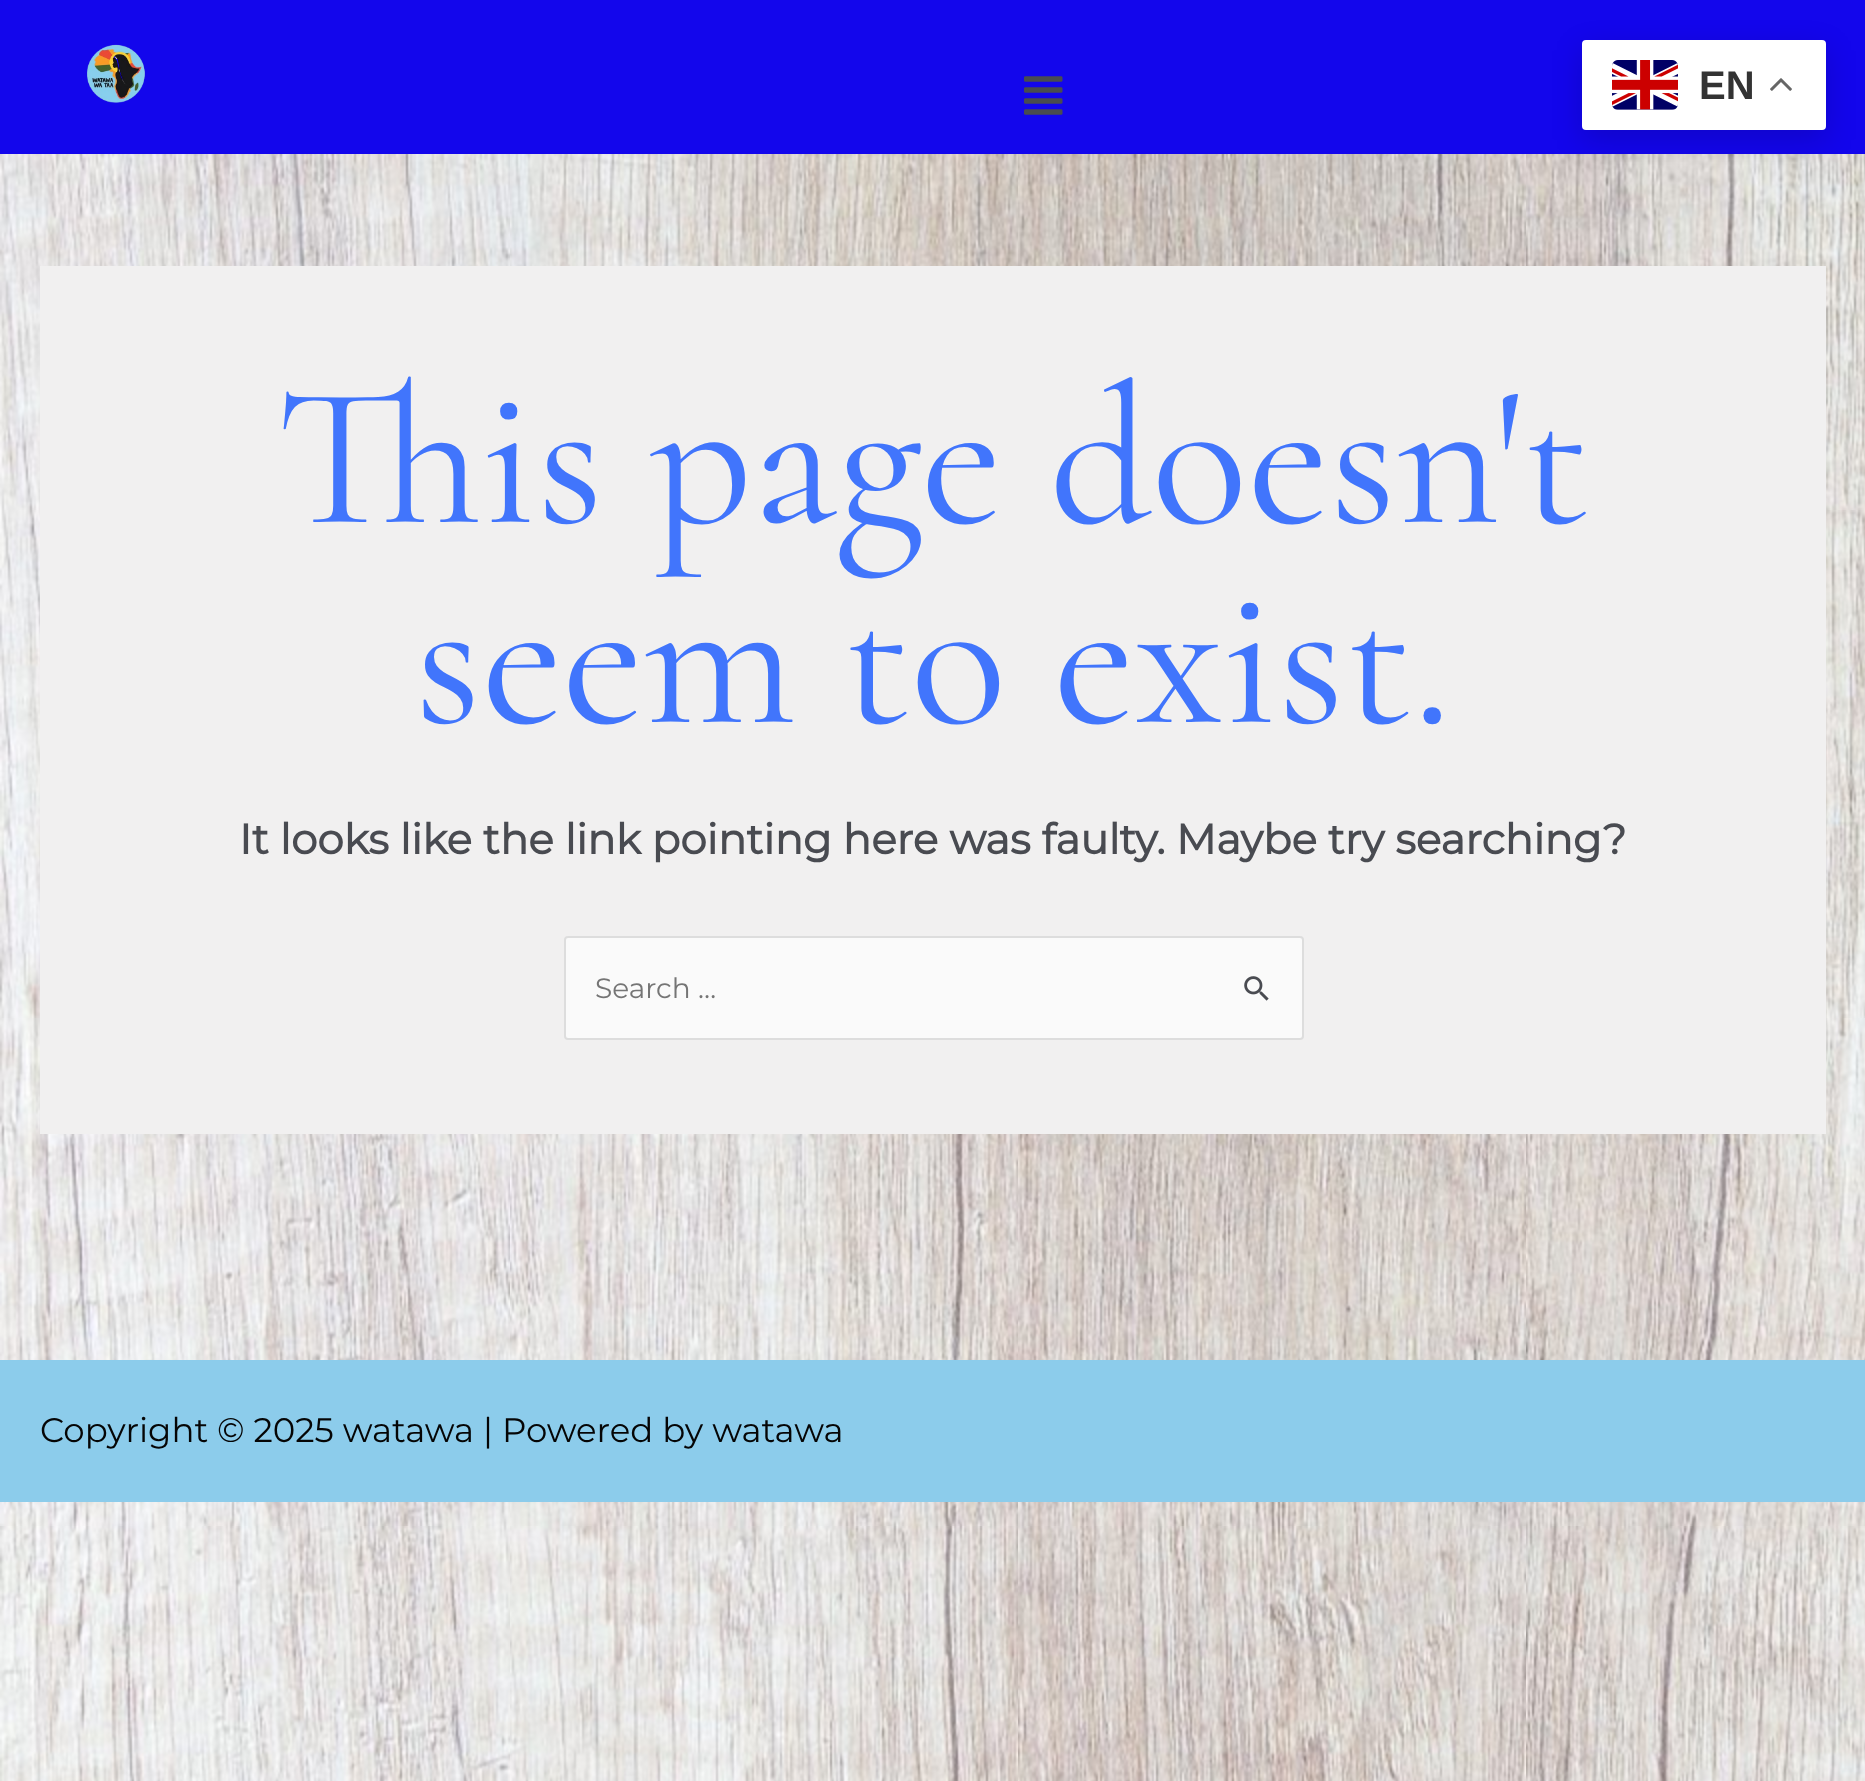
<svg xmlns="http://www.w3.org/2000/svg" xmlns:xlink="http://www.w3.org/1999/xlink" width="1865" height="1781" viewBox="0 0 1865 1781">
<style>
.cls-1{font:bold 40px Liberation Sans;fill:#333333}
.cls-2{font:300 200px Cormorant;fill:#4175fc}
.cls-3{font:bold 42px Montserrat;fill:#494b51}
.cls-4{font:100 28px Montserrat;fill:#757575}
.cls-5{font:100 34px Montserrat;fill:#050505}
</style>
<rect width="100%" height="100%" fill="#ffffff"/>
<image xlink:href="image0.png" x="0" y="154" width="1865" height="1627"/>
<rect fill="#1306ec" x="0" y="0" width="1865" height="154"/>
<rect fill="#000000" fill-opacity="0.15" filter="blur(15px)" x="1582" y="50" width="244" height="90" rx="4"/>
<rect fill="#ffffff" x="1582" y="40" width="244" height="90" rx="4"/>
<image xlink:href="image1.png" x="1612" y="60" width="66" height="50"/>
<image xlink:href="image2.png" x="1770" y="78" width="22" height="13"/>
<image xlink:href="image3.png" x="87" y="44" width="58" height="59"/>
<image xlink:href="image4.png" x="1024" y="76" width="39" height="39"/>
<rect fill="#f1f0f0" x="40" y="266" width="1786" height="868"/>
<rect fill="#fafafa" stroke="#dddddd" stroke-width="2" x="565" y="937" width="738" height="102" rx="3"/>
<image xlink:href="image5.png" x="1244" y="976" width="25" height="25"/>
<rect fill="#8ccceb" x="0" y="1360" width="1865" height="142"/>
<text class="cls-1" x="1699" y="99">EN</text>
<text class="cls-2" x="276" y="522">This page doesn't</text>
<text class="cls-2" x="414" y="722">seem to exist.</text>
<text class="cls-3" x="239" y="854">It looks like the link pointing here was faulty. Maybe try searching?</text>
<text class="cls-4" x="595" y="998">Search …</text>
<text class="cls-5" x="40" y="1442">Copyright © 2025 watawa | Powered by watawa</text>
</svg>
